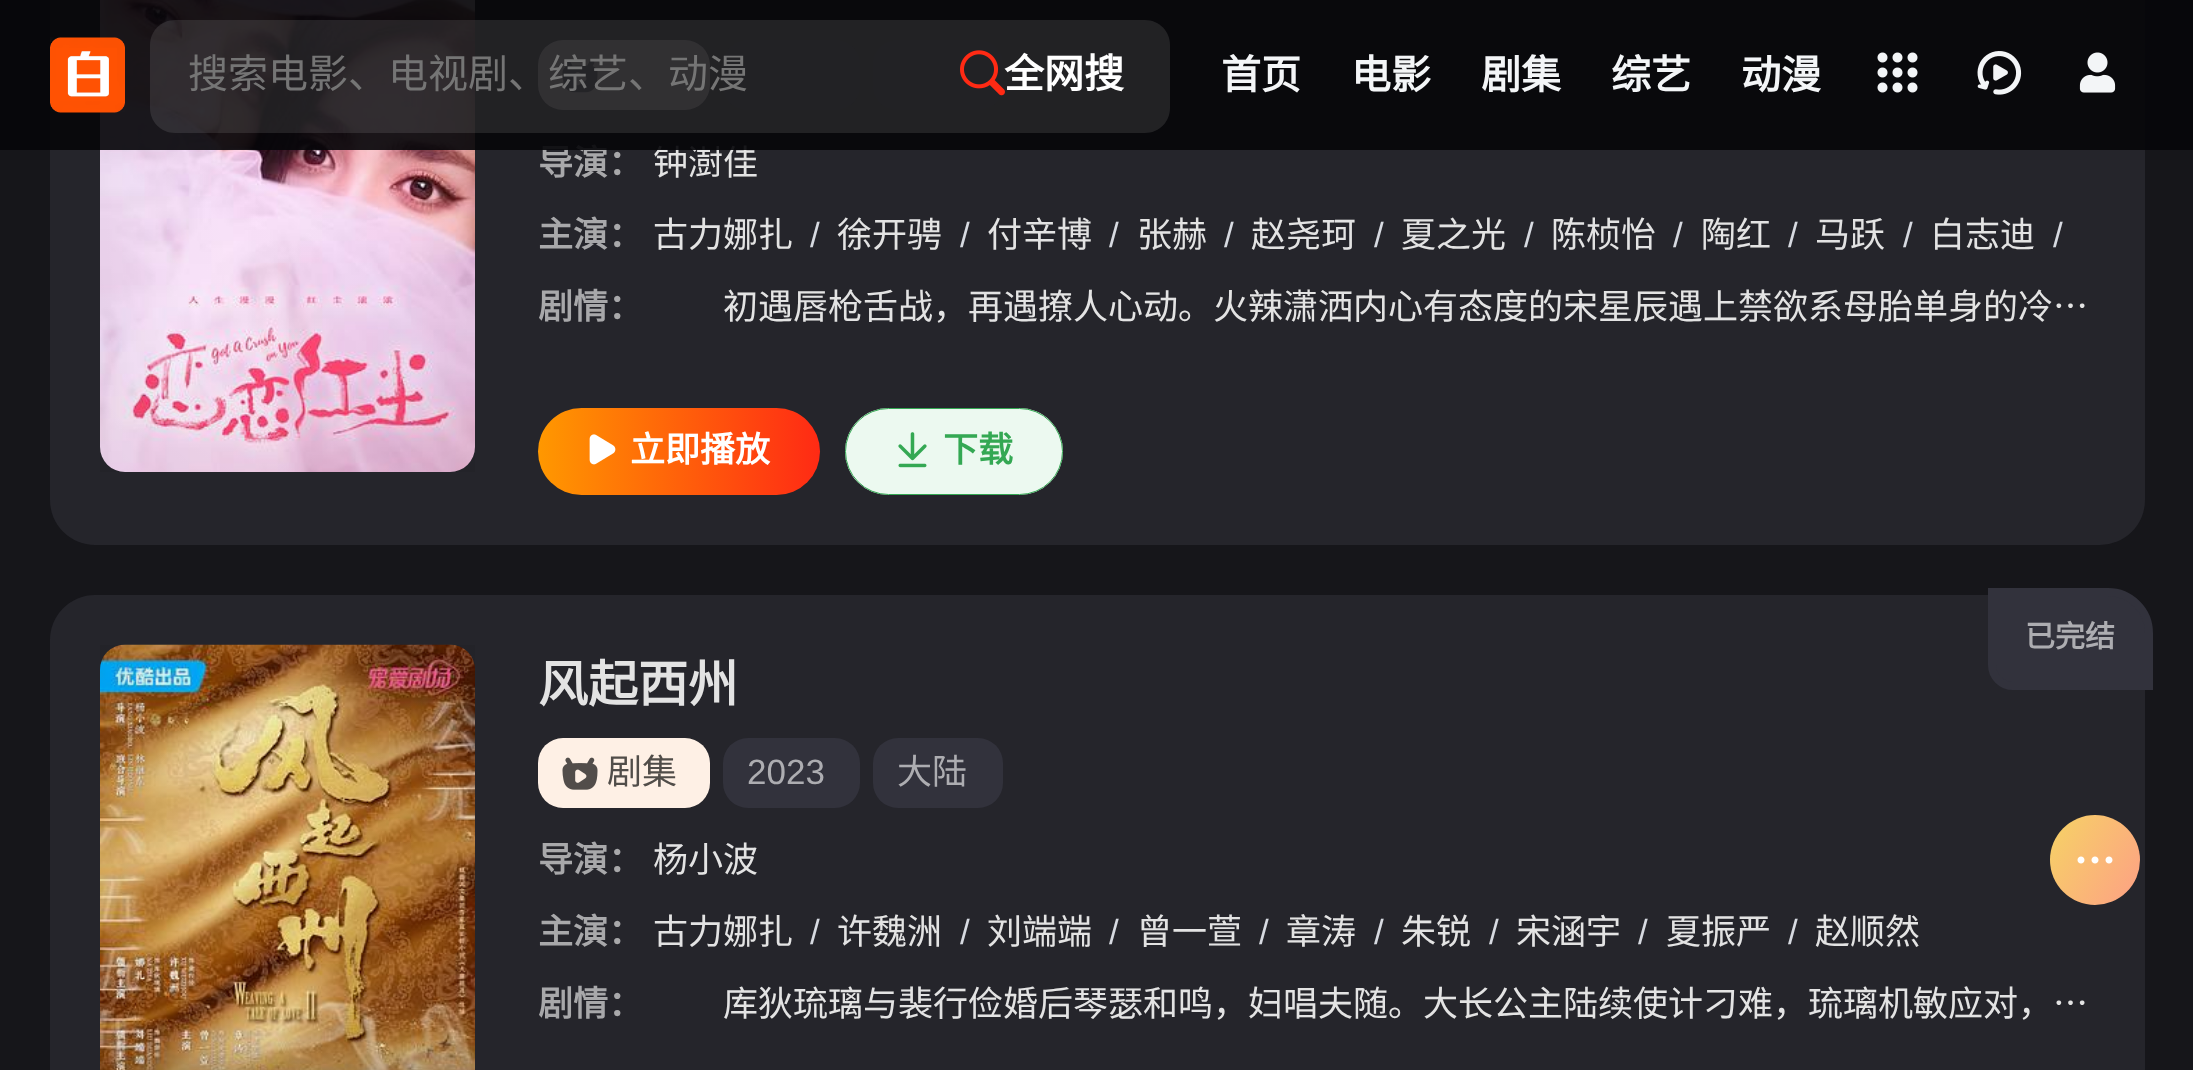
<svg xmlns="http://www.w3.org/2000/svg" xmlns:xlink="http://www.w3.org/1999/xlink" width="2193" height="1070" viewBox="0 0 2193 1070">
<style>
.cls-1{font:bold 35px Noto Sans CJK SC;fill:#a8a8aa}
.cls-2{font:35px Noto Sans CJK SC;fill:#e3e3e3}
.cls-3{font:bold 40px Noto Sans CJK SC;fill:#ffffff}
.cls-4{font:40px Noto Sans CJK SC;fill:#757575}
.cls-5{font:bold 40px Noto Sans CJK SC;fill:#f3f5f7}
.cls-6{font:35px Liberation Sans;fill:#d7dae1}
.cls-7{font:bold 35px Noto Sans CJK SC;fill:#ffffff}
.cls-8{font:bold 35px Noto Sans CJK SC;fill:#34a853}
.cls-9{font:bold 30px Noto Sans CJK SC;fill:#adadb1}
.cls-10{font:bold 50px Noto Sans CJK SC;fill:#e3e3e3}
.cls-11{font:35px Noto Sans CJK SC;fill:#514d49}
.cls-12{font:35px Liberation Sans;fill:#adadb1}
.cls-13{font:35px Noto Sans CJK SC;fill:#adadb1}
</style>
<defs>
<radialGradient id="g1" gradientUnits="userSpaceOnUse" cx="0" cy="0" r="1" gradientTransform="matrix(265 0 0 371 288 210)"><stop offset="0" stop-color="#000000" stop-opacity="0"/><stop offset="0.44" stop-color="#000000" stop-opacity="0.01"/><stop offset="1" stop-color="#000000" stop-opacity="0.06"/></radialGradient>
<linearGradient id="g2" gradientUnits="userSpaceOnUse" x1="538" y1="451" x2="820" y2="451"><stop offset="0" stop-color="#ff9800"/><stop offset="1" stop-color="#ff2a14"/></linearGradient>
<radialGradient id="g3" gradientUnits="userSpaceOnUse" cx="0" cy="0" r="1" gradientTransform="matrix(265 0 0 371 288 908)"><stop offset="0" stop-color="#000000" stop-opacity="0"/><stop offset="0.44" stop-color="#000000" stop-opacity="0.01"/><stop offset="1" stop-color="#000000" stop-opacity="0.06"/></radialGradient>
<linearGradient id="g4" gradientUnits="userSpaceOnUse" x1="2042" y1="829" x2="2148" y2="891"><stop offset="0" stop-color="#f6d365"/><stop offset="1" stop-color="#fda085"/></linearGradient>
</defs>
<rect width="100%" height="100%" fill="#16161a"/>
<rect fill="#25252b" x="50" y="-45" width="2095" height="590" rx="45"/>
<image xlink:href="image5.png" x="100" y="0" width="375" height="472"/>
<rect fill="url(#g1)" x="100" y="0" width="375" height="472"/>
<rect fill="#fef0e5" x="538" y="40" width="172" height="70" rx="25"/>
<image xlink:href="image6.png" x="562" y="60" width="36" height="33"/>
<rect fill="#32323c" x="723" y="40" width="137" height="70" rx="25"/>
<rect fill="#32323c" x="873" y="40" width="130" height="70" rx="25"/>
<rect fill="url(#g2)" x="538" y="408" width="282" height="87" rx="43.5"/>
<image xlink:href="image7.png" x="589" y="434" width="27" height="31"/>
<rect fill="#ecf9f0" x="845" y="408" width="218" height="87" rx="43.5"/>
<image xlink:href="image8.png" x="898" y="432" width="29" height="36"/>
<rect fill="none" stroke="#34a853" x="845.5" y="408.5" width="217" height="86" rx="43"/>
<rect fill="#25252b" x="50" y="595" width="2095" height="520" rx="45"/>
<image xlink:href="image9.png" x="100" y="644" width="375" height="426"/>
<rect fill="url(#g3)" x="100" y="645" width="375" height="425"/>
<path fill="#32323c" stroke="#32323c" stroke-width="8" d="M1992 592H2108C2130.5 592 2149 610.5 2149 633V686H2013C2001.5 686 1992 676.5 1992 665Z"/>
<rect fill="#fef0e5" x="538" y="738" width="172" height="70" rx="25"/>
<image xlink:href="image10.png" x="562" y="757" width="36" height="33"/>
<rect fill="#32323c" x="723" y="738" width="137" height="70" rx="25"/>
<rect fill="#32323c" x="873" y="738" width="130" height="70" rx="25"/>
<circle fill="url(#g4)" cx="2095" cy="860" r="45"/>
<image xlink:href="image11.png" x="2077" y="856" width="36" height="8"/>
<text class="cls-1" x="538" y="175">导演：</text>
<text class="cls-2" x="653" y="175">钟澍佳</text>
<rect fill="#07070a" fill-opacity="0.92" x="0" y="0" width="2193" height="150"/>
<image xlink:href="image3.png" x="1977" y="51" width="45" height="44"/>
<image xlink:href="image2.png" x="1877" y="52" width="41" height="41"/>
<image xlink:href="image4.png" x="2079" y="52" width="37" height="41"/>
<path fill="#ffffff" fill-opacity="0.1" d="M913 20H1145C1159 20 1170 31 1170 45V108C1170 122 1159 133 1145 133H913Z"/>
<image xlink:href="image1.png" x="960" y="50" width="45" height="46"/>
<text class="cls-3" x="1004" y="88">全网搜</text>
<path fill="#ffffff" fill-opacity="0.1" d="M175 20H913V133H175C161 133 150 122 150 108V45C150 31 161 20 175 20Z"/>
<text class="cls-4" x="188" y="88">搜索电影、电视剧、综艺、动漫</text>
<text class="cls-5" x="1741" y="89">动漫</text>
<text class="cls-5" x="1611" y="89">综艺</text>
<text class="cls-5" x="1481" y="89">剧集</text>
<text class="cls-5" x="1351" y="89">电影</text>
<text class="cls-5" x="1221" y="89">首页</text>
<image xlink:href="image0.png" x="50" y="37" width="75" height="76"/>
<text class="cls-1" x="538" y="247">主演：</text>
<text class="cls-2" x="653" y="247">古力娜扎</text>
<text class="cls-6" x="810" y="247">/</text>
<text class="cls-2" x="837" y="247">徐开骋</text>
<text class="cls-6" x="960" y="247">/</text>
<text class="cls-2" x="987" y="247">付辛博</text>
<text class="cls-6" x="1109" y="247">/</text>
<text class="cls-2" x="1137" y="247">张赫</text>
<text class="cls-6" x="1224" y="247">/</text>
<text class="cls-2" x="1251" y="247">赵尧珂</text>
<text class="cls-6" x="1374" y="247">/</text>
<text class="cls-2" x="1401" y="247">夏之光</text>
<text class="cls-6" x="1524" y="247">/</text>
<text class="cls-2" x="1551" y="247">陈桢怡</text>
<text class="cls-6" x="1673" y="247">/</text>
<text class="cls-2" x="1701" y="247">陶红</text>
<text class="cls-6" x="1788" y="247">/</text>
<text class="cls-2" x="1815" y="247">马跃</text>
<text class="cls-6" x="1903" y="247">/</text>
<text class="cls-2" x="1930" y="247">白志迪</text>
<text class="cls-6" x="2053" y="247">/</text>
<text class="cls-1" x="538" y="319">剧情：</text>
<text class="cls-2" x="723" y="319">初遇唇枪舌战，再遇撩人心动。火辣潇洒内心有态度的宋星辰遇上禁欲系母胎单身的冷…</text>
<text class="cls-7" x="630" y="462">立即播放</text>
<text class="cls-8" x="943" y="462">下载</text>
<text class="cls-9" x="2025" y="647">已完结</text>
<text class="cls-10" x="538" y="702">风起西州</text>
<text class="cls-11" x="607" y="784">剧集</text>
<text class="cls-12" x="747" y="784">2023</text>
<text class="cls-13" x="897" y="784">大陆</text>
<text class="cls-1" x="538" y="872">导演：</text>
<text class="cls-2" x="653" y="872">杨小波</text>
<text class="cls-1" x="538" y="944">主演：</text>
<text class="cls-2" x="653" y="944">古力娜扎</text>
<text class="cls-6" x="810" y="944">/</text>
<text class="cls-2" x="837" y="944">许魏洲</text>
<text class="cls-6" x="960" y="944">/</text>
<text class="cls-2" x="987" y="944">刘端端</text>
<text class="cls-6" x="1109" y="944">/</text>
<text class="cls-2" x="1137" y="944">曾一萱</text>
<text class="cls-6" x="1259" y="944">/</text>
<text class="cls-2" x="1286" y="944">章涛</text>
<text class="cls-6" x="1374" y="944">/</text>
<text class="cls-2" x="1401" y="944">朱锐</text>
<text class="cls-6" x="1489" y="944">/</text>
<text class="cls-2" x="1516" y="944">宋涵宇</text>
<text class="cls-6" x="1638" y="944">/</text>
<text class="cls-2" x="1666" y="944">夏振严</text>
<text class="cls-6" x="1788" y="944">/</text>
<text class="cls-2" x="1815" y="944">赵顺然</text>
<text class="cls-1" x="538" y="1016">剧情：</text>
<text class="cls-2" x="723" y="1016">库狄琉璃与裴行俭婚后琴瑟和鸣，妇唱夫随。大长公主陆续使计刁难，琉璃机敏应对，…</text>
</svg>
